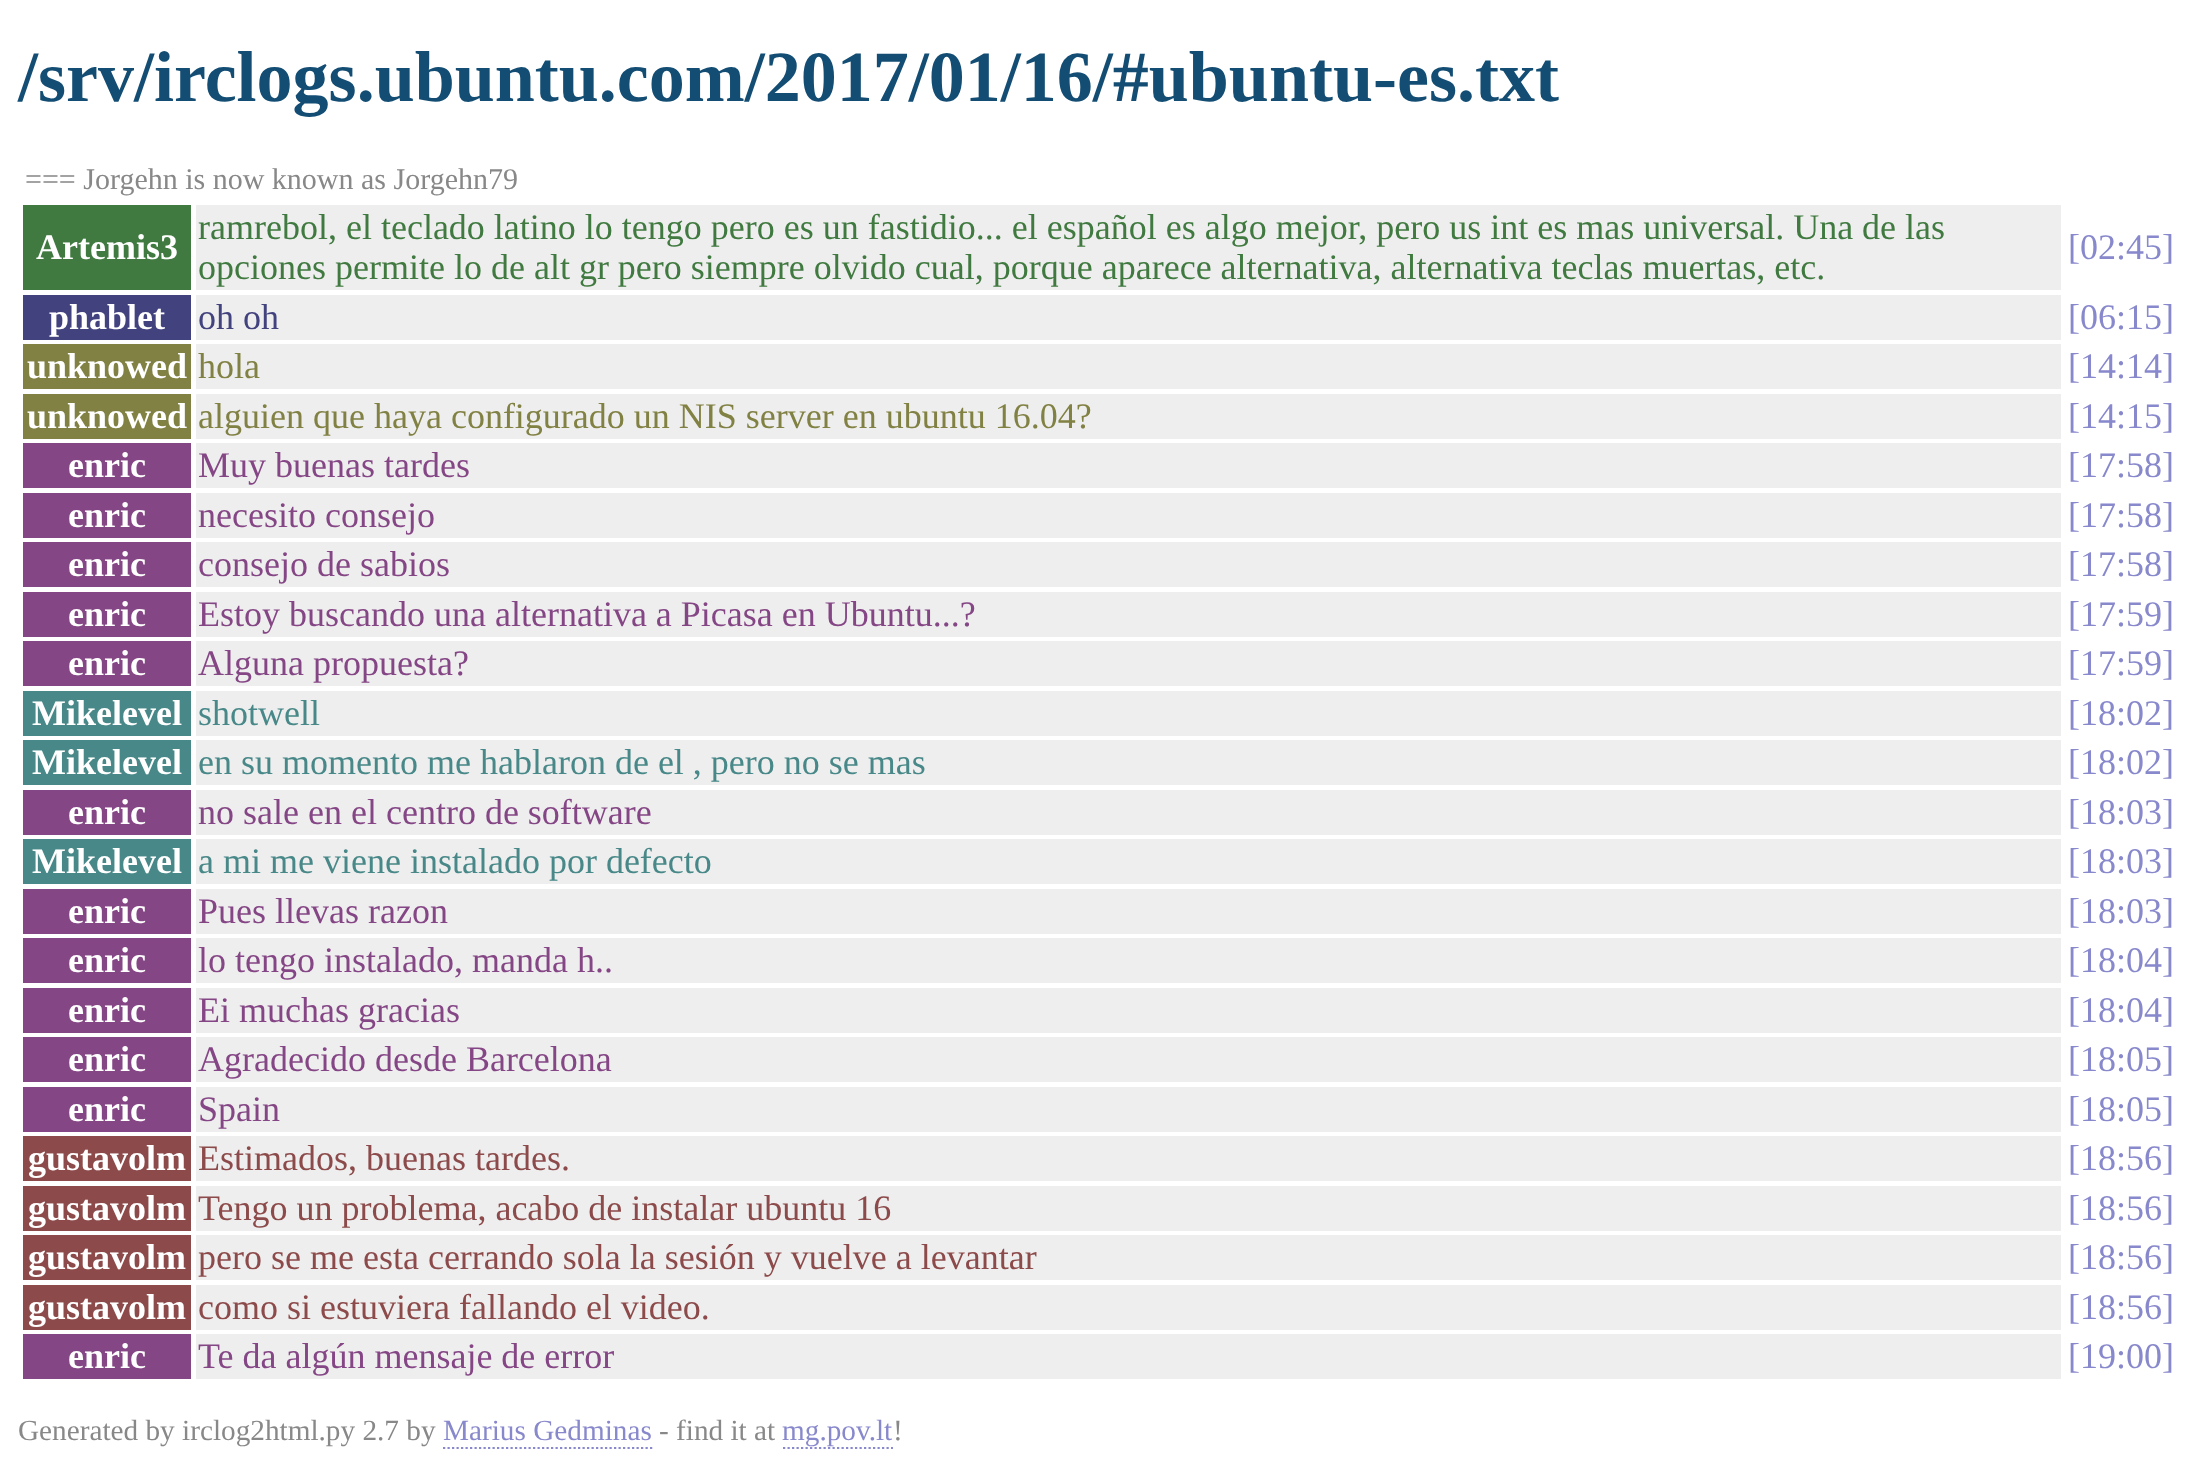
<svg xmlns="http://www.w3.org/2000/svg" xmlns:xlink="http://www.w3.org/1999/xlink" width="2198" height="1483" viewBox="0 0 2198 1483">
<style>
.cls-1{font:bold 72px Liberation Serif;fill:#134d73}
.cls-2{font:30px Liberation Serif;fill:#888888}
.cls-3{font:bold 36px Liberation Serif;fill:#ffffff}
.cls-4{font:36px Liberation Serif;fill:#407a40}
.cls-5{font:36px Liberation Serif;fill:#8888cc}
.cls-6{font:36px Liberation Serif;fill:#42427e}
.cls-7{font:36px Liberation Serif;fill:#818144}
.cls-8{font:36px Liberation Serif;fill:#854685}
.cls-9{font:36px Liberation Serif;fill:#488888}
.cls-10{font:36px Liberation Serif;fill:#8c4a4a}
.cls-11{font:29.25px Liberation Serif;fill:#888888}
.cls-12{font:29.25px Liberation Serif;fill:#8888cc}
</style>
<rect width="100%" height="100%" fill="#ffffff"/>
<rect fill="#407a40" x="23" y="205" width="168" height="85"/>
<rect fill="#eeeeee" x="196" y="205" width="1865" height="85"/>
<rect fill="#42427e" x="23" y="295" width="168" height="45"/>
<rect fill="#eeeeee" x="196" y="295" width="1865" height="45"/>
<rect fill="#818144" x="23" y="344" width="168" height="45"/>
<rect fill="#eeeeee" x="196" y="344" width="1865" height="45"/>
<rect fill="#818144" x="23" y="394" width="168" height="45"/>
<rect fill="#eeeeee" x="196" y="394" width="1865" height="45"/>
<rect fill="#854685" x="23" y="443" width="168" height="45"/>
<rect fill="#eeeeee" x="196" y="443" width="1865" height="45"/>
<rect fill="#854685" x="23" y="493" width="168" height="45"/>
<rect fill="#eeeeee" x="196" y="493" width="1865" height="45"/>
<rect fill="#854685" x="23" y="542" width="168" height="45"/>
<rect fill="#eeeeee" x="196" y="542" width="1865" height="45"/>
<rect fill="#854685" x="23" y="592" width="168" height="45"/>
<rect fill="#eeeeee" x="196" y="592" width="1865" height="45"/>
<rect fill="#854685" x="23" y="641" width="168" height="45"/>
<rect fill="#eeeeee" x="196" y="641" width="1865" height="45"/>
<rect fill="#488888" x="23" y="691" width="168" height="45"/>
<rect fill="#eeeeee" x="196" y="691" width="1865" height="45"/>
<rect fill="#488888" x="23" y="740" width="168" height="45"/>
<rect fill="#eeeeee" x="196" y="740" width="1865" height="45"/>
<rect fill="#854685" x="23" y="790" width="168" height="45"/>
<rect fill="#eeeeee" x="196" y="790" width="1865" height="45"/>
<rect fill="#488888" x="23" y="839" width="168" height="45"/>
<rect fill="#eeeeee" x="196" y="839" width="1865" height="45"/>
<rect fill="#854685" x="23" y="889" width="168" height="45"/>
<rect fill="#eeeeee" x="196" y="889" width="1865" height="45"/>
<rect fill="#854685" x="23" y="938" width="168" height="45"/>
<rect fill="#eeeeee" x="196" y="938" width="1865" height="45"/>
<rect fill="#854685" x="23" y="988" width="168" height="45"/>
<rect fill="#eeeeee" x="196" y="988" width="1865" height="45"/>
<rect fill="#854685" x="23" y="1037" width="168" height="45"/>
<rect fill="#eeeeee" x="196" y="1037" width="1865" height="45"/>
<rect fill="#854685" x="23" y="1087" width="168" height="45"/>
<rect fill="#eeeeee" x="196" y="1087" width="1865" height="45"/>
<rect fill="#8c4a4a" x="23" y="1136" width="168" height="45"/>
<rect fill="#eeeeee" x="196" y="1136" width="1865" height="45"/>
<rect fill="#8c4a4a" x="23" y="1186" width="168" height="45"/>
<rect fill="#eeeeee" x="196" y="1186" width="1865" height="45"/>
<rect fill="#8c4a4a" x="23" y="1235" width="168" height="45"/>
<rect fill="#eeeeee" x="196" y="1235" width="1865" height="45"/>
<rect fill="#8c4a4a" x="23" y="1285" width="168" height="45"/>
<rect fill="#eeeeee" x="196" y="1285" width="1865" height="45"/>
<rect fill="#854685" x="23" y="1334" width="168" height="45"/>
<rect fill="#eeeeee" x="196" y="1334" width="1865" height="45"/>
<path fill="none" stroke="#8888cc" stroke-width="2.2" stroke-dasharray="2.25 2.25" d="M443 1448H652.5"/>
<path fill="none" stroke="#8888cc" stroke-width="2.2" stroke-dasharray="2.25 2.25" d="M783 1448H893"/>
<text class="cls-1" x="18" y="101">/srv/irclogs.ubuntu.com/2017/01/16/#ubuntu-es.txt</text>
<text class="cls-2" x="25" y="189">=== Jorgehn is now known as Jorgehn79</text>
<text class="cls-3" x="36" y="259">Artemis3</text>
<text class="cls-4"><tspan x="198" y="239">ramrebol, el teclado latino lo tengo pero es un fastidio... el español es algo mejor, pero us int es mas universal. Una de las</tspan><tspan x="198" y="279">opciones permite lo de alt gr pero siempre olvido cual, porque aparece alternativa, alternativa teclas muertas, etc.</tspan></text>
<text class="cls-5" x="2068" y="259">[02:45]</text>
<text class="cls-3" x="49" y="329">phablet</text>
<text class="cls-6" x="198" y="329">oh oh</text>
<text class="cls-5" x="2068" y="329">[06:15]</text>
<text class="cls-3" x="27" y="378">unknowed</text>
<text class="cls-7" x="198" y="378">hola</text>
<text class="cls-5" x="2068" y="378">[14:14]</text>
<text class="cls-3" x="27" y="428">unknowed</text>
<text class="cls-7" x="198" y="428">alguien que haya configurado un NIS server en ubuntu 16.04?</text>
<text class="cls-5" x="2068" y="428">[14:15]</text>
<text class="cls-3" x="68" y="477">enric</text>
<text class="cls-8" x="198" y="477">Muy buenas tardes</text>
<text class="cls-5" x="2068" y="477">[17:58]</text>
<text class="cls-3" x="68" y="527">enric</text>
<text class="cls-8" x="198" y="527">necesito consejo</text>
<text class="cls-5" x="2068" y="527">[17:58]</text>
<text class="cls-3" x="68" y="576">enric</text>
<text class="cls-8" x="198" y="576">consejo de sabios</text>
<text class="cls-5" x="2068" y="576">[17:58]</text>
<text class="cls-3" x="68" y="626">enric</text>
<text class="cls-8" x="198" y="626">Estoy buscando una alternativa a Picasa en Ubuntu...?</text>
<text class="cls-5" x="2068" y="626">[17:59]</text>
<text class="cls-3" x="68" y="675">enric</text>
<text class="cls-8" x="198" y="675">Alguna propuesta?</text>
<text class="cls-5" x="2068" y="675">[17:59]</text>
<text class="cls-3" x="32" y="725">Mikelevel</text>
<text class="cls-9" x="198" y="725">shotwell</text>
<text class="cls-5" x="2068" y="725">[18:02]</text>
<text class="cls-3" x="32" y="774">Mikelevel</text>
<text class="cls-9" x="198" y="774">en su momento me hablaron de el , pero no se mas</text>
<text class="cls-5" x="2068" y="774">[18:02]</text>
<text class="cls-3" x="68" y="824">enric</text>
<text class="cls-8" x="198" y="824">no sale en el centro de software</text>
<text class="cls-5" x="2068" y="824">[18:03]</text>
<text class="cls-3" x="32" y="873">Mikelevel</text>
<text class="cls-9" x="198" y="873">a mi me viene instalado por defecto</text>
<text class="cls-5" x="2068" y="873">[18:03]</text>
<text class="cls-3" x="68" y="923">enric</text>
<text class="cls-8" x="198" y="923">Pues llevas razon</text>
<text class="cls-5" x="2068" y="923">[18:03]</text>
<text class="cls-3" x="68" y="972">enric</text>
<text class="cls-8" x="198" y="972">lo tengo instalado, manda h..</text>
<text class="cls-5" x="2068" y="972">[18:04]</text>
<text class="cls-3" x="68" y="1022">enric</text>
<text class="cls-8" x="198" y="1022">Ei muchas gracias</text>
<text class="cls-5" x="2068" y="1022">[18:04]</text>
<text class="cls-3" x="68" y="1071">enric</text>
<text class="cls-8" x="198" y="1071">Agradecido desde Barcelona</text>
<text class="cls-5" x="2068" y="1071">[18:05]</text>
<text class="cls-3" x="68" y="1121">enric</text>
<text class="cls-8" x="198" y="1121">Spain</text>
<text class="cls-5" x="2068" y="1121">[18:05]</text>
<text class="cls-3" x="28" y="1170">gustavolm</text>
<text class="cls-10" x="198" y="1170">Estimados, buenas tardes.</text>
<text class="cls-5" x="2068" y="1170">[18:56]</text>
<text class="cls-3" x="28" y="1220">gustavolm</text>
<text class="cls-10" x="198" y="1220">Tengo un problema, acabo de instalar ubuntu 16</text>
<text class="cls-5" x="2068" y="1220">[18:56]</text>
<text class="cls-3" x="28" y="1269">gustavolm</text>
<text class="cls-10" x="198" y="1269">pero se me esta cerrando sola la sesión y vuelve a levantar</text>
<text class="cls-5" x="2068" y="1269">[18:56]</text>
<text class="cls-3" x="28" y="1319">gustavolm</text>
<text class="cls-10" x="198" y="1319">como si estuviera fallando el video.</text>
<text class="cls-5" x="2068" y="1319">[18:56]</text>
<text class="cls-3" x="68" y="1368">enric</text>
<text class="cls-8" x="198" y="1368">Te da algún mensaje de error</text>
<text class="cls-5" x="2068" y="1368">[19:00]</text>
<text class="cls-11" x="18" y="1440">Generated by irclog2html.py 2.7 by</text>
<text class="cls-12" x="443" y="1440">Marius Gedminas</text>
<text class="cls-11" x="659" y="1440">- find it at</text>
<text class="cls-12" x="782" y="1440">mg.pov.lt</text>
<text class="cls-11" x="893" y="1440">!</text>
</svg>
